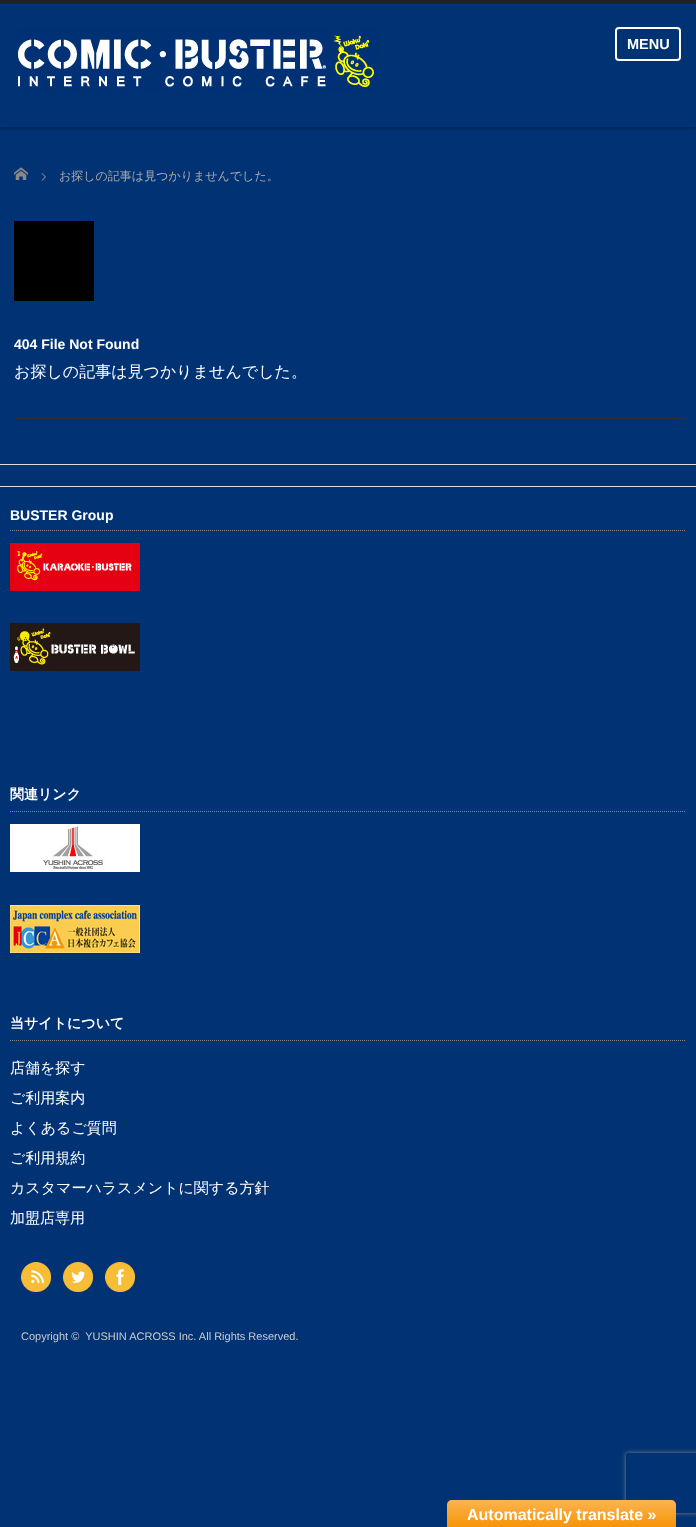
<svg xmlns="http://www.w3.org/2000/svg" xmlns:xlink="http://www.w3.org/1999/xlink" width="696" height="1527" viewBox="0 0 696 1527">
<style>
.cls-1{font:bold 14.5px Liberation Sans;fill:#ffffff}
.cls-2{font:500 12px WenQuanYi Zen Hei;fill:#aaaaaa}
.cls-3{font:bold 14px Liberation Sans;fill:#ffffff}
.cls-4{font:500 16px WenQuanYi Zen Hei;fill:#ffffff}
.cls-5{font:bold 14px WenQuanYi Zen Hei;fill:#ffffff}
.cls-6{font:500 15px WenQuanYi Zen Hei;fill:#ffffff}
.cls-7{font:11px Liberation Sans;fill:#cccccc}
.cls-8{font:bold 16px Liberation Sans;fill:#ffffff}
</style>
<defs>
<clipPath id="clip1"><rect x="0" y="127" width="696" height="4"/></clipPath>
<clipPath id="clip2"><path d="M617 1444H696V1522H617ZM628 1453H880C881 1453 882 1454 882 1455V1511C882 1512 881 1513 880 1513H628C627 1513 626 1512 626 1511V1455C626 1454 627 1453 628 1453Z" clip-rule="evenodd"/></clipPath>
<linearGradient id="g1" gradientUnits="userSpaceOnUse" x1="562" y1="1500" x2="562" y2="1527"><stop offset="0" stop-color="#fbb450"/><stop offset="1" stop-color="#f89406"/></linearGradient>
</defs>
<rect width="100%" height="100%" fill="#003274"/>
<g clip-path="url(#clip1)">
<rect fill="#000000" fill-opacity="0.5" filter="blur(2.5px)" x="0" y="0" width="696" height="127"/>
</g>
<rect fill="#222222" x="0" y="0" width="696" height="4"/>
<image xlink:href="image0.png" x="18" y="29" width="360" height="64"/>
<rect fill="none" stroke="#ffffff" stroke-width="2" x="616" y="28" width="64" height="32" rx="3"/>
<image xlink:href="image1.png" x="14" y="167" width="14" height="13"/>
<image xlink:href="image2.png" x="41" y="173" width="5" height="8"/>
<rect fill="#000000" x="14" y="221" width="80" height="80"/>
<path fill="none" stroke="#333333" stroke-dasharray="1 1" d="M14 418.5H682"/>
<rect fill="#dddddd" x="0" y="464" width="696" height="1"/>
<rect fill="#dddddd" x="0" y="486" width="696" height="1"/>
<path fill="none" stroke="#888888" stroke-dasharray="1 1" d="M10 530.5H686"/>
<image xlink:href="image3.png" x="10" y="543" width="130" height="48"/>
<image xlink:href="image4.png" x="10" y="623" width="130" height="48"/>
<path fill="none" stroke="#888888" stroke-dasharray="1 1" d="M10 811.5H686"/>
<image xlink:href="image5.png" x="10" y="824" width="130" height="48"/>
<image xlink:href="image6.png" x="10" y="905" width="130" height="48"/>
<path fill="none" stroke="#888888" stroke-dasharray="1 1" d="M10 1040.5H686"/>
<image xlink:href="image7.png" x="21" y="1262" width="30" height="30"/>
<image xlink:href="image8.png" x="63" y="1262" width="30" height="30"/>
<image xlink:href="image9.png" x="105" y="1262" width="30" height="30"/>
<g clip-path="url(#clip2)">
<rect fill="#808080" filter="blur(2.5px)" x="626" y="1453" width="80" height="60" rx="2"/>
</g>
<path fill="url(#g1)" d="M452 1500H671C674 1500 676 1502 676 1505V1527H447V1505C447 1502 449 1500 452 1500Z"/>
<text class="cls-1" x="627" y="49">MENU</text>
<text class="cls-2" x="59" y="180">お探しの記事は見つかりませんでした。</text>
<text class="cls-3" x="14" y="349">404 File Not Found</text>
<text class="cls-4" x="14" y="377">お探しの記事は見つかりませんでした。</text>
<text class="cls-3" x="10" y="520">BUSTER Group</text>
<text class="cls-5" x="10" y="799">関連リンク</text>
<text class="cls-5" x="10" y="1028">当サイトについて</text>
<text class="cls-6" x="10" y="1073">店舗を探す</text>
<text class="cls-6" x="10" y="1103">ご利用案内</text>
<text class="cls-6" x="10" y="1133">よくあるご質問</text>
<text class="cls-6" x="10" y="1163">ご利用規約</text>
<text class="cls-6" x="10" y="1193">カスタマーハラスメントに関する方針</text>
<text class="cls-6" x="10" y="1223">加盟店専用</text>
<text class="cls-7" xml:space="preserve" x="21" y="1340">Copyright ©  YUSHIN ACROSS Inc. All Rights Reserved.</text>
<text class="cls-8" x="467" y="1520">Automatically translate »</text>
</svg>
